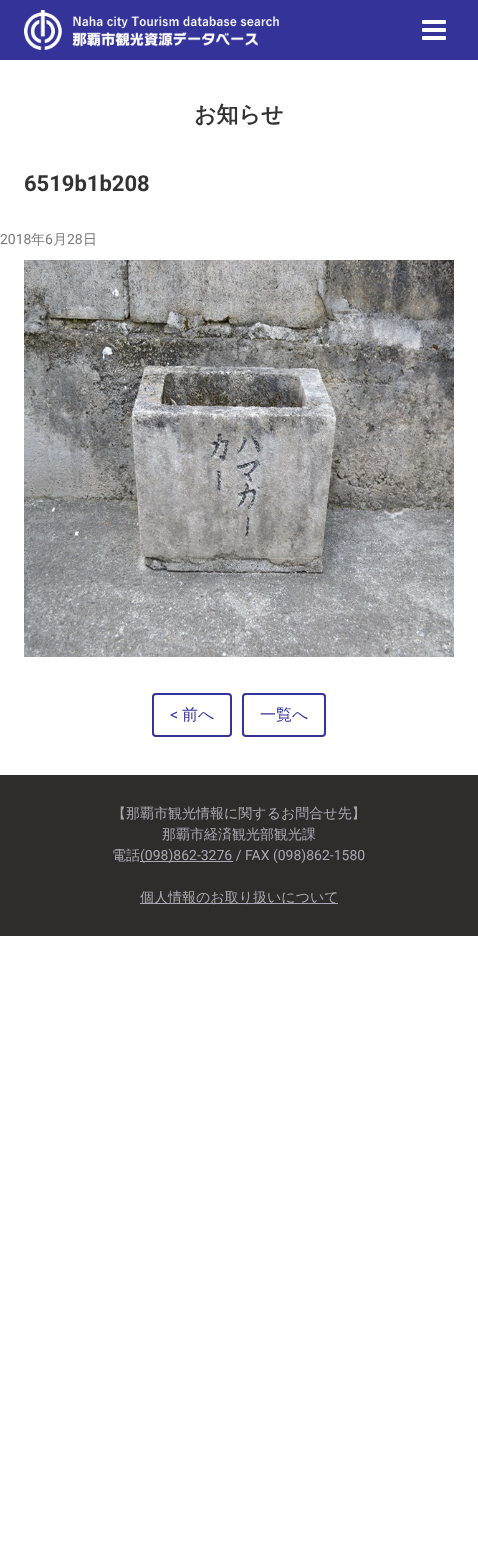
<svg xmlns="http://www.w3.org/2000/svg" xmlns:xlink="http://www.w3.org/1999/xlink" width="478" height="1553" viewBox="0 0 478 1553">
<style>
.cls-1{font:bold 22px WenQuanYi Zen Hei;fill:#333333}
.cls-2{font:bold 22px Roboto;fill:#333333}
.cls-3{font:14px Roboto;fill:#7b7a7a}
.cls-4{font:500 14px WenQuanYi Zen Hei;fill:#7b7a7a}
.cls-5{font:16px Roboto;fill:#333399}
.cls-6{font:500 16px WenQuanYi Zen Hei;fill:#333399}
.cls-7{font:500 14px WenQuanYi Zen Hei;fill:#a9a7b1}
.cls-8{font:14px Roboto;fill:#a9a7b1}
</style>
<rect width="100%" height="100%" fill="#ffffff"/>
<rect fill="#333399" x="0" y="0" width="478" height="60"/>
<image xlink:href="image0.png" x="24" y="10" width="255" height="40"/>
<image xlink:href="image1.png" x="422" y="20" width="24" height="20"/>
<image xlink:href="image2.png" x="24" y="260" width="430" height="397"/>
<rect fill="none" stroke="#333399" stroke-width="2" x="153" y="694" width="78" height="42" rx="3"/>
<rect fill="none" stroke="#333399" stroke-width="2" x="243" y="694" width="82" height="42" rx="3"/>
<rect fill="#2e2d2b" x="0" y="775" width="478" height="161"/>
<rect fill="#a9a7b1" x="140" y="861" width="93" height="1"/>
<rect fill="#a9a7b1" x="140" y="903" width="198" height="1"/>
<text class="cls-1" x="194" y="122">お知らせ</text>
<text class="cls-2" x="24" y="191">6519b1b208</text>
<text class="cls-3" x="0" y="244">2018</text>
<text class="cls-4" x="31" y="244">年</text>
<text class="cls-3" x="45" y="244">6</text>
<text class="cls-4" x="53" y="244">月</text>
<text class="cls-3" x="67" y="244">28</text>
<text class="cls-4" x="83" y="244">日</text>
<text class="cls-5" x="170" y="720">&lt;</text>
<text class="cls-6" x="182" y="720">前へ</text>
<text class="cls-6" x="260" y="720">一覧へ</text>
<text class="cls-7" x="112" y="818">【那覇市観光情報に関するお問合せ先】</text>
<text class="cls-7" x="162" y="839">那覇市経済観光部観光課</text>
<text class="cls-7" x="112" y="860">電話</text>
<text class="cls-8" x="140" y="860">(098)862-3276 / FAX (098)862-1580</text>
<text class="cls-7" x="140" y="902">個人情報のお取り扱いについて</text>
</svg>
